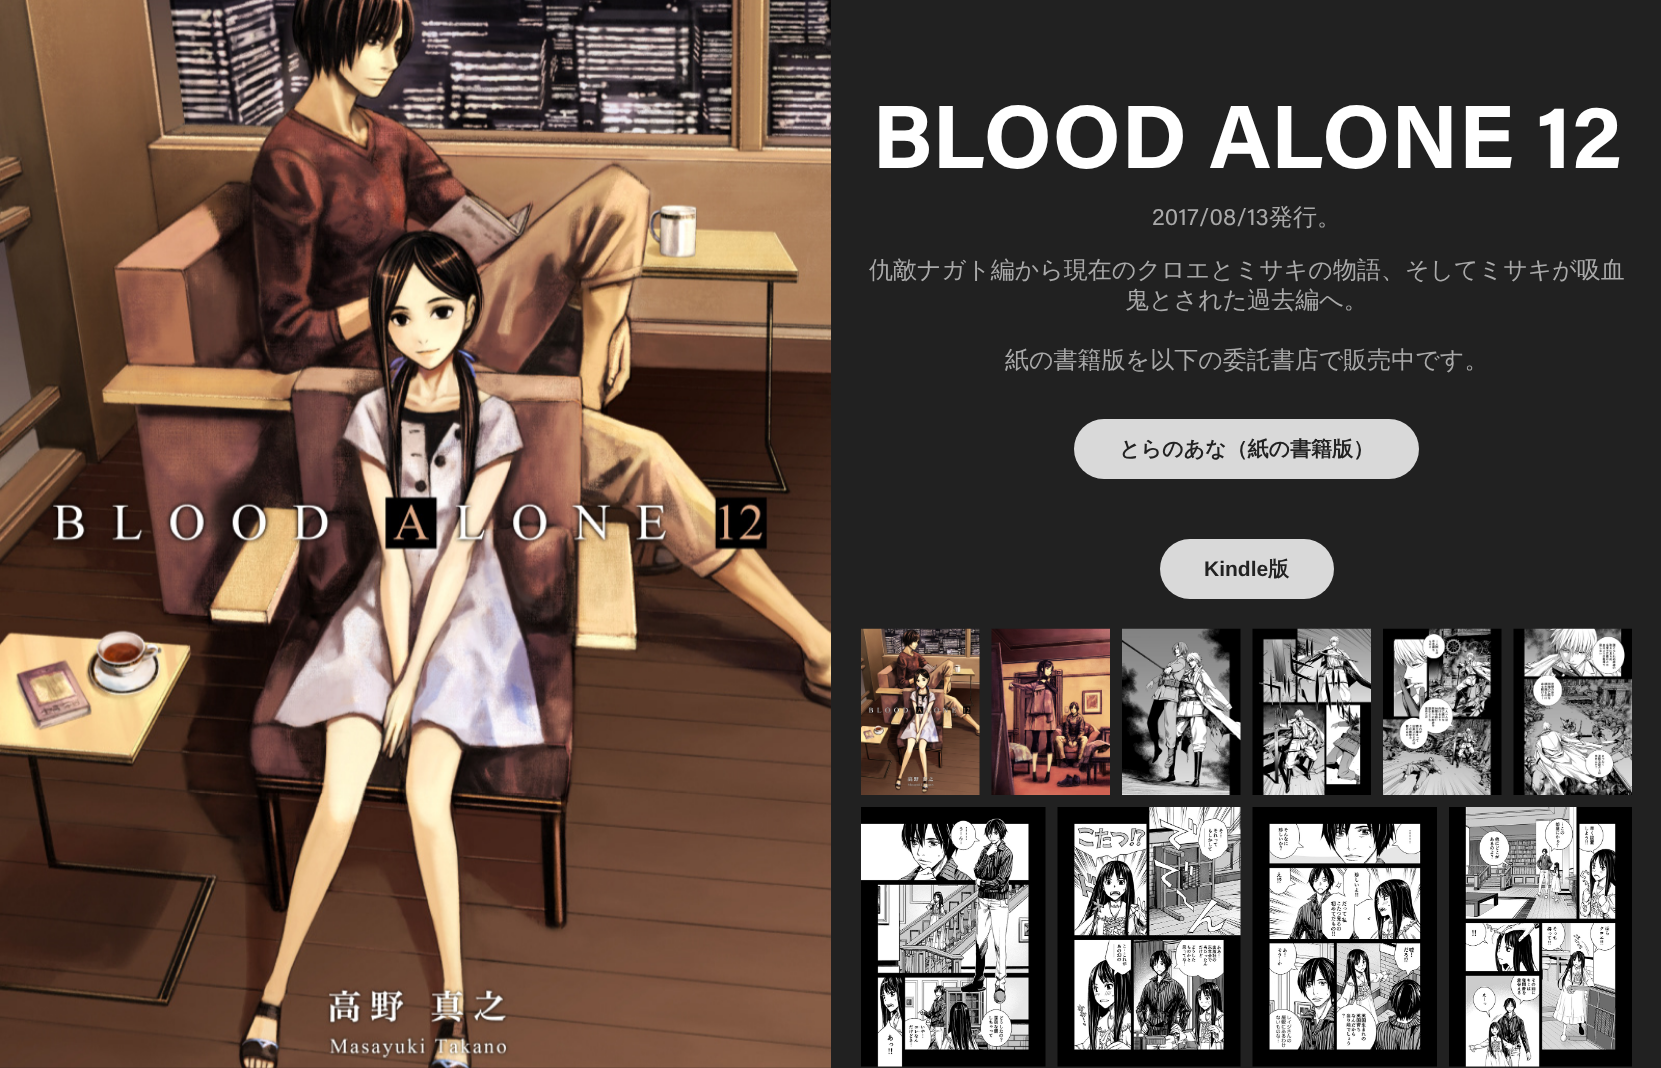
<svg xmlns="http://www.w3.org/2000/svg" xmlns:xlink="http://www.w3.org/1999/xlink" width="1661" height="1068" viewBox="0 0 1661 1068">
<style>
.cls-1{font:bold 90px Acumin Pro;fill:#ffffff}
.cls-2{font:24px Acumin Pro;fill:#a9a9a9}
.cls-3{font:500 24px WenQuanYi Zen Hei;fill:#a9a9a9}
.cls-4{font:bold 21px WenQuanYi Zen Hei;fill:#222222}
.cls-5{font:bold 21px Liberation Sans;fill:#222222}
</style>
<rect width="100%" height="100%" fill="#212121"/>
<image xlink:href="image0.png" x="0" y="0" width="831" height="1068"/>
<rect fill="#d9d9d9" x="1074" y="419" width="345" height="60" rx="30"/>
<rect fill="#d9d9d9" x="1160" y="539" width="174" height="60" rx="30"/>
<image xlink:href="image1.png" x="861" y="628" width="119" height="167"/>
<image xlink:href="image2.png" x="991" y="628" width="119" height="167"/>
<image xlink:href="image3.png" x="1122" y="628" width="119" height="167"/>
<image xlink:href="image4.png" x="1252" y="628" width="119" height="167"/>
<image xlink:href="image5.png" x="1383" y="628" width="119" height="167"/>
<image xlink:href="image6.png" x="1513" y="628" width="119" height="167"/>
<image xlink:href="image7.png" x="861" y="807" width="185" height="260"/>
<image xlink:href="image8.png" x="1057" y="807" width="184" height="260"/>
<image xlink:href="image9.png" x="1252" y="807" width="185" height="260"/>
<image xlink:href="image10.png" x="1449" y="807" width="183" height="260"/>
<text class="cls-1" x="872" y="168">BLOOD ALONE 12</text>
<text class="cls-2" x="1152" y="225">2017/08/13</text>
<text class="cls-3" x="1269" y="225">発行。</text>
<text class="cls-3" x="869" y="278">仇敵ナガト編から現在のクロエとミサキの物語、そしてミサキが吸血</text>
<text class="cls-3" x="1125" y="308">鬼とされた過去編へ。</text>
<text class="cls-3" x="1005" y="368">紙の書籍版を以下の委託書店で販売中です。</text>
<text class="cls-4" x="1119" y="456">とらのあな（紙の書籍版）</text>
<text class="cls-5" x="1204" y="576">Kindle</text>
<text class="cls-4" x="1268" y="576">版</text>
</svg>
